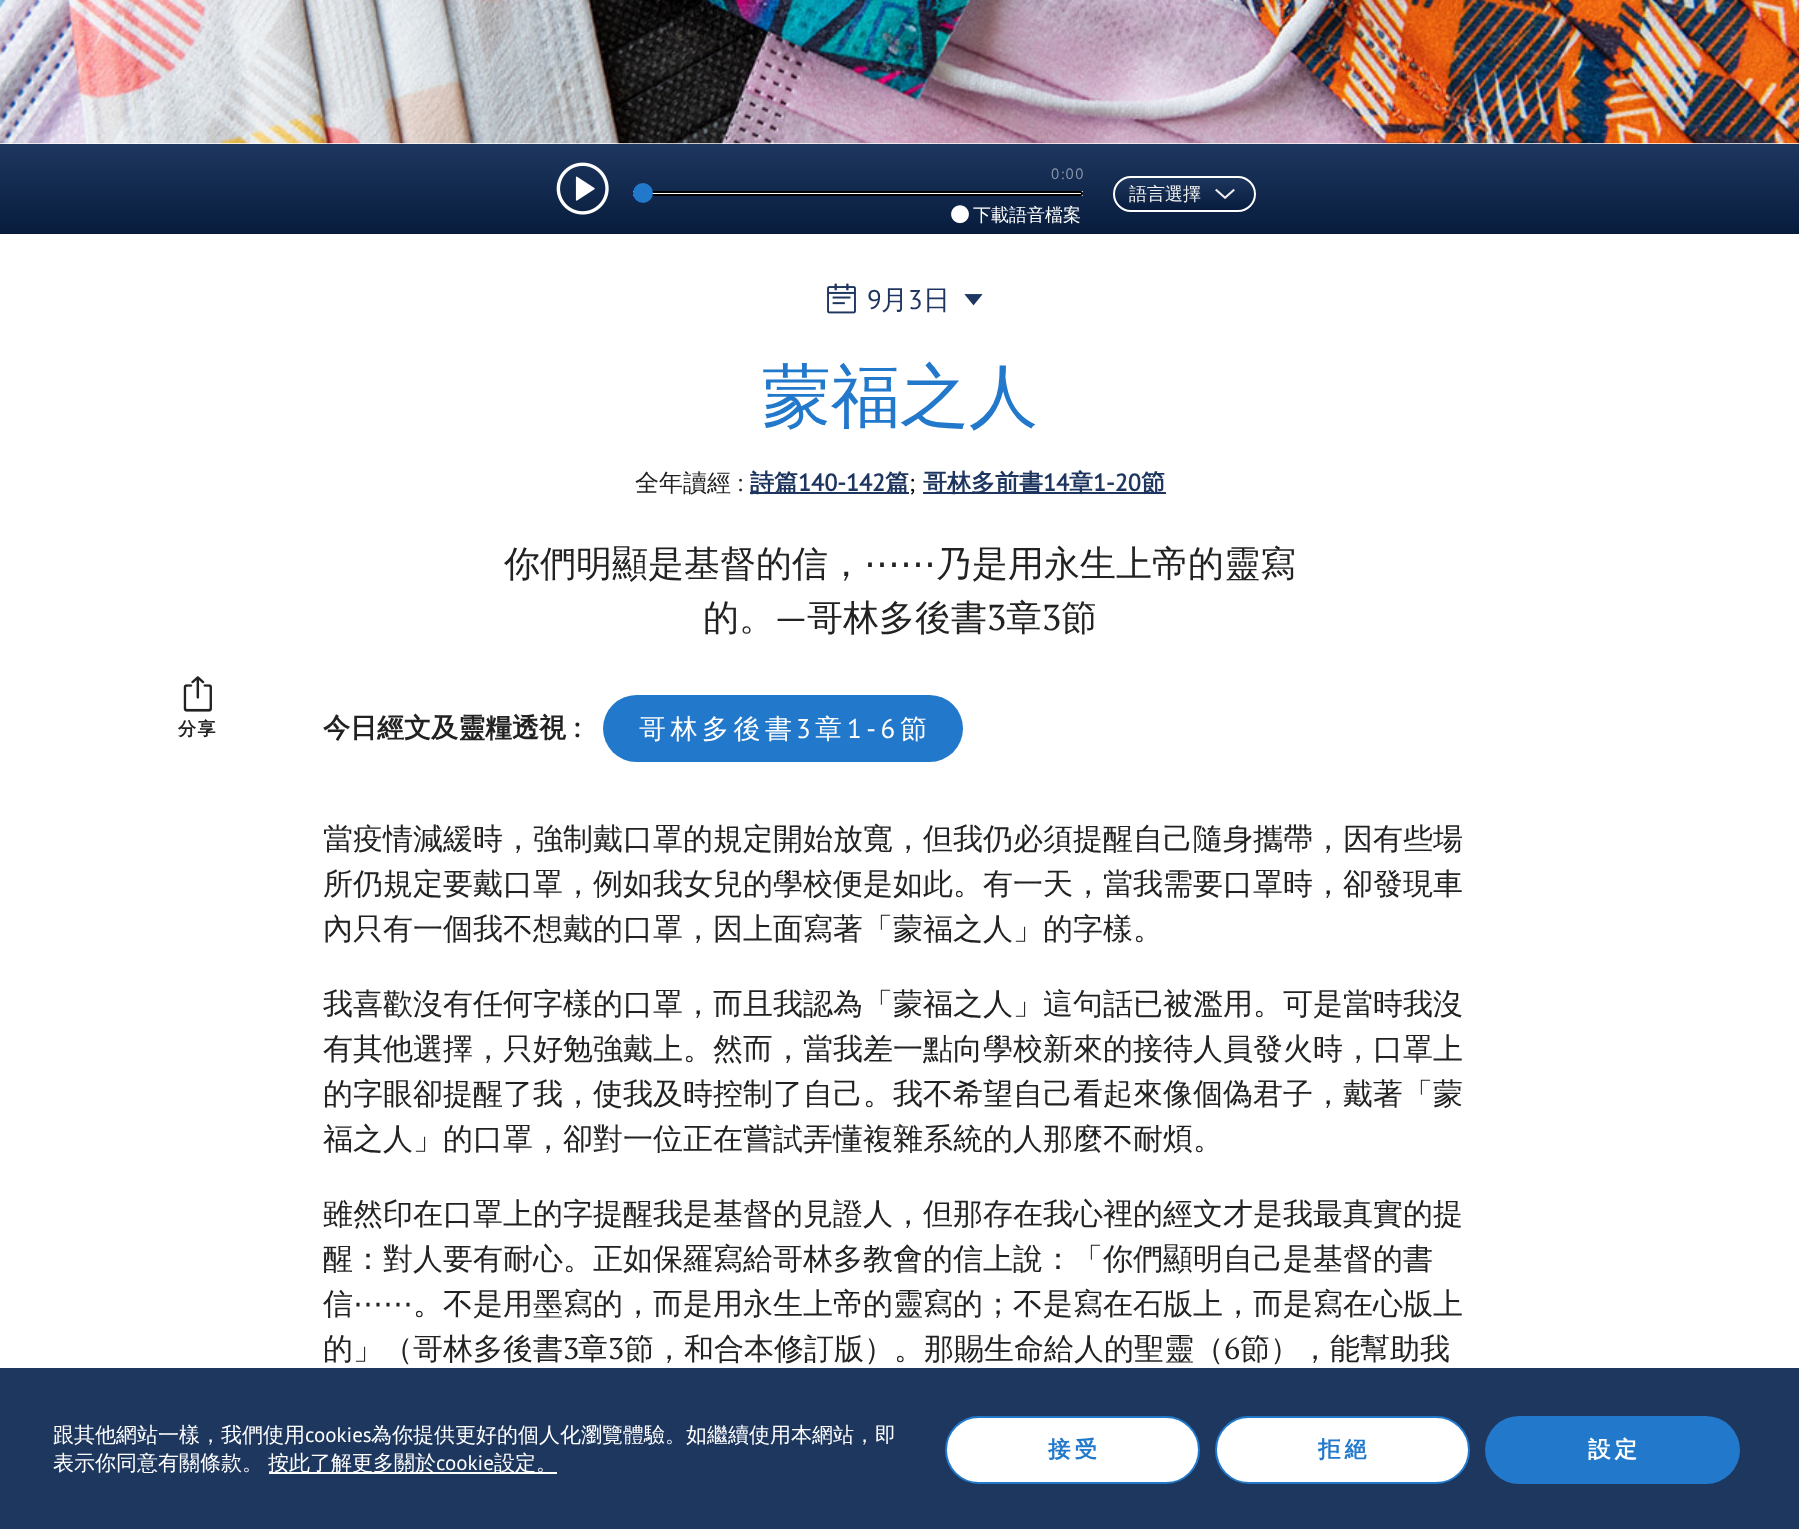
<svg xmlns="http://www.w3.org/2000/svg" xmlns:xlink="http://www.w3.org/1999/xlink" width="1799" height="1529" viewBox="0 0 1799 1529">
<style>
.cls-1{font:15px PT Sans;letter-spacing:1.5px;fill:#8894a8}
.cls-2{font:500 18px WenQuanYi Zen Hei;fill:#ffffff}
.cls-3{font:500 18px WenQuanYi Zen Hei;fill:#f0f0f0}
.cls-4{font:27px PT Sans;fill:#1e365f}
.cls-5{font:500 27px WenQuanYi Zen Hei;fill:#1e365f}
.cls-6{font:500 69px WenQuanYi Zen Hei;fill:#2279cb}
.cls-7{font:500 24px WenQuanYi Zen Hei;fill:#222222}
.cls-8{font:24px PT Sans;fill:#222222}
.cls-9{font:bold 24px WenQuanYi Zen Hei;fill:#1e365f}
.cls-10{font:bold 24px PT Sans;fill:#1e365f}
.cls-11{font:24px PT Sans;fill:#000000}
.cls-12{font:500 36px WenQuanYi Zen Hei;fill:#222222}
.cls-13{font:36px DejaVu Sans;fill:#222222}
.cls-14{font:36px PT Serif;fill:#222222}
.cls-15{font:bold 18px WenQuanYi Zen Hei;letter-spacing:1.5px;fill:#222222}
.cls-16{font:bold 27px WenQuanYi Zen Hei;fill:#222222}
.cls-17{font:bold 27px PT Sans;fill:#222222}
.cls-18{font:500 27px WenQuanYi Zen Hei;letter-spacing:4.5px;fill:#ffffff}
.cls-19{font:27px PT Sans;letter-spacing:4.5px;fill:#ffffff}
.cls-20{font:500 30px WenQuanYi Zen Hei;fill:#222222}
.cls-21{font:30px DejaVu Sans;fill:#222222}
.cls-22{font:30px PT Serif;fill:#222222}
.cls-23{font:500 21px WenQuanYi Zen Hei;fill:#ffffff}
.cls-24{font:21px PT Sans;fill:#ffffff}
.cls-25{font:bold 22.5px WenQuanYi Zen Hei;letter-spacing:4px;fill:#2279cb}
.cls-26{font:bold 22.5px WenQuanYi Zen Hei;letter-spacing:4px;fill:#ffffff}
</style>
<defs>
<linearGradient id="g1" gradientUnits="userSpaceOnUse" x1="900" y1="144" x2="900" y2="234"><stop offset="0" stop-color="#1e375f"/><stop offset="1" stop-color="#071c3d"/></linearGradient>
<clipPath id="clip1"><rect x="1113" y="176" width="143" height="36" rx="18"/></clipPath>
<linearGradient id="g2" gradientUnits="userSpaceOnUse" x1="1184" y1="177" x2="1184" y2="210"><stop offset="0" stop-color="#1e375f"/><stop offset="1" stop-color="#071c3d"/></linearGradient>
</defs>
<rect width="100%" height="100%" fill="#ffffff"/>
<image xlink:href="image0.png" x="0" y="0" width="1799" height="144"/>
<rect fill="url(#g1)" x="0" y="144" width="1799" height="90"/>
<image xlink:href="image1.png" x="556" y="162" width="53" height="53"/>
<rect fill="#ffffff" x="633" y="191" width="450" height="5"/>
<rect fill="none" stroke="#010101" stroke-width="2" x="634" y="192" width="448" height="3" rx="1.5"/>
<circle fill="#2279cb" cx="643" cy="193" r="10"/>
<image xlink:href="image2.png" x="951" y="205" width="18" height="19"/>
<g clip-path="url(#clip1)">
<rect fill="url(#g2)" x="1113" y="177" width="143" height="33"/>
</g>
<rect fill="none" stroke="#ffffff" stroke-width="2" x="1114" y="177" width="141" height="34" rx="17"/>
<image xlink:href="image3.png" x="1215" y="188" width="20" height="11"/>
<image xlink:href="image4.png" x="827" y="283" width="29" height="31"/>
<image xlink:href="image5.png" x="964" y="294" width="19" height="12"/>
<rect fill="#1e365f" x="750" y="492" width="159" height="2"/>
<rect fill="#1e365f" x="923" y="492" width="243" height="2"/>
<image xlink:href="image6.png" x="183" y="676" width="29" height="36"/>
<rect fill="#2279cb" x="603" y="695" width="360" height="67" rx="33.5"/>
<rect fill="#1e375f" x="0" y="1368" width="1799" height="161"/>
<rect fill="#ffffff" x="269" y="1472" width="288" height="2"/>
<rect fill="#ffffff" stroke="#2279cb" stroke-width="2" x="946" y="1417" width="253" height="66" rx="33"/>
<rect fill="#ffffff" stroke="#2279cb" stroke-width="2" x="1216" y="1417" width="253" height="66" rx="33"/>
<rect fill="#2279cb" x="1485" y="1416" width="255" height="68" rx="34"/>
<text class="cls-1" x="1051" y="179">0:00</text>
<text class="cls-2" x="973" y="221">下載語音檔案</text>
<text class="cls-3" x="1129" y="200">語言選擇</text>
<text class="cls-4" x="867" y="309">9</text>
<text class="cls-5" x="881" y="309">月</text>
<text class="cls-4" x="908" y="309">3</text>
<text class="cls-5" x="923" y="309">日</text>
<text class="cls-6" x="762" y="420">蒙福之人</text>
<text class="cls-7" x="635" y="491">全年讀經</text>
<text class="cls-8" x="737" y="491">:</text>
<text class="cls-9" x="750" y="491">詩篇</text>
<text class="cls-10" x="798" y="491">140-142</text>
<text class="cls-9" x="885" y="491">篇</text>
<text class="cls-11" x="909" y="491">;</text>
<text class="cls-9" x="923" y="491">哥林多前書</text>
<text class="cls-10" x="1043" y="491">14</text>
<text class="cls-9" x="1069" y="491">章</text>
<text class="cls-10" x="1093" y="491">1-20</text>
<text class="cls-9" x="1141" y="491">節</text>
<text class="cls-12" x="504" y="576">你們明顯是基督的信，</text>
<text class="cls-13" x="864" y="576">⋯⋯</text>
<text class="cls-12" x="936" y="576">乃是用永生上帝的靈寫</text>
<text class="cls-12" x="703" y="630">的。</text>
<text class="cls-14" x="775" y="630">—</text>
<text class="cls-12" x="807" y="630">哥林多後書</text>
<text class="cls-14" x="987" y="630">3</text>
<text class="cls-12" x="1006" y="630">章</text>
<text class="cls-14" x="1042" y="630">3</text>
<text class="cls-12" x="1061" y="630">節</text>
<text class="cls-15" x="178" y="735">分享</text>
<text class="cls-16" x="323" y="737">今日經文及靈糧透視</text>
<text class="cls-17" x="573" y="737">:</text>
<text class="cls-18" x="639" y="738">哥林多後書</text>
<text class="cls-19" x="796" y="738">3</text>
<text class="cls-18" x="815" y="738">章</text>
<text class="cls-19" x="847" y="738">1-6</text>
<text class="cls-18" x="900" y="738">節</text>
<text class="cls-20"><tspan x="323" y="849">當疫情減緩時，強制戴口罩的規定開始放寬，但我仍必須提醒自己隨身攜帶，因有些場</tspan><tspan x="323" y="894">所仍規定要戴口罩，例如我女兒的學校便是如此。有一天，當我需要口罩時，卻發現車</tspan><tspan x="323" y="939">內只有一個我不想戴的口罩，因上面寫著「蒙福之人」的字樣。</tspan></text>
<text class="cls-20"><tspan x="323" y="1014">我喜歡沒有任何字樣的口罩，而且我認為「蒙福之人」這句話已被濫用。可是當時我沒</tspan><tspan x="323" y="1059">有其他選擇，只好勉強戴上。然而，當我差一點向學校新來的接待人員發火時，口罩上</tspan><tspan x="323" y="1104">的字眼卻提醒了我，使我及時控制了自己。我不希望自己看起來像個偽君子，戴著「蒙</tspan><tspan x="323" y="1149">福之人」的口罩，卻對一位正在嘗試弄懂複雜系統的人那麼不耐煩。</tspan></text>
<text class="cls-20"><tspan x="323" y="1224">雖然印在口罩上的字提醒我是基督的見證人，但那存在我心裡的經文才是我最真實的提</tspan><tspan x="323" y="1269">醒：對人要有耐心。正如保羅寫給哥林多教會的信上說：「你們顯明自己是基督的書</tspan><tspan x="323" y="1314">信</tspan></text>
<text class="cls-21" x="353" y="1314">⋯⋯</text>
<text class="cls-20" x="413" y="1314">。不是用墨寫的，而是用永生上帝的靈寫的；不是寫在石版上，而是寫在心版上</text>
<text class="cls-20" x="323" y="1359">的」（哥林多後書</text>
<text class="cls-22" x="563" y="1359">3</text>
<text class="cls-20" x="578" y="1359">章</text>
<text class="cls-22" x="608" y="1359">3</text>
<text class="cls-20" x="624" y="1359">節，和合本修訂版）。那賜生命給人的聖靈（</text>
<text class="cls-22" x="1224" y="1359">6</text>
<text class="cls-20" x="1240" y="1359">節），能幫助我</text>
<text class="cls-23" x="53" y="1442">跟其他網站一樣，我們使用</text>
<text class="cls-24" x="305" y="1442">cookies</text>
<text class="cls-23" x="371" y="1442">為你提供更好的個人化瀏覽體驗。如繼續使用本網站，即</text>
<text class="cls-23" x="53" y="1470">表示你同意有關條款。</text>
<text class="cls-23" x="268" y="1470">按此了解更多關於</text>
<text class="cls-24" x="436" y="1470">cookie</text>
<text class="cls-23" x="494" y="1470">設定。</text>
<text class="cls-25" x="1048" y="1457">接受</text>
<text class="cls-25" x="1318" y="1457">拒絕</text>
<text class="cls-26" x="1588" y="1457">設定</text>
</svg>
